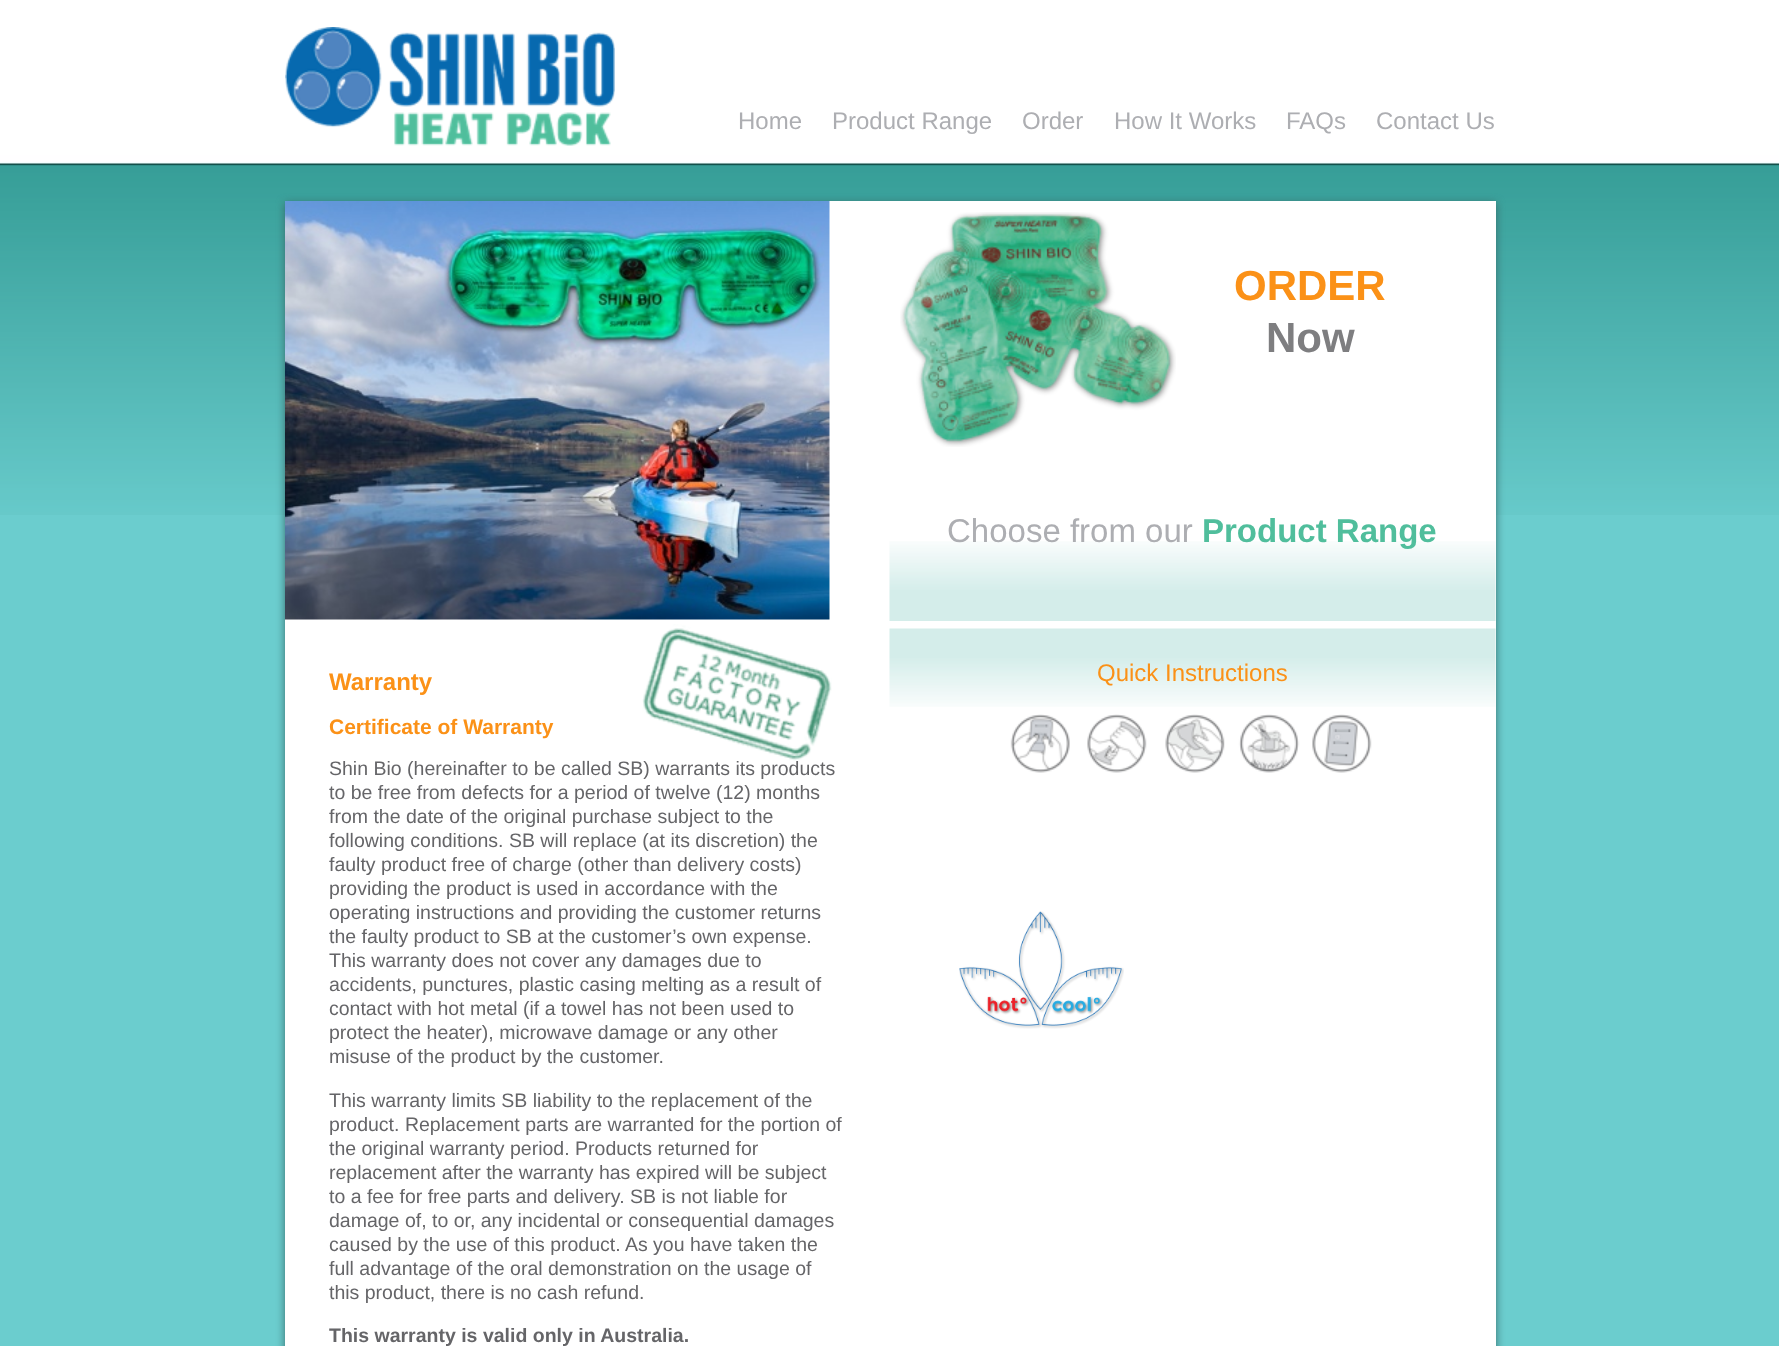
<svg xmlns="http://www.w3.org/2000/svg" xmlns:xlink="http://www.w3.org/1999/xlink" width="1779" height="1346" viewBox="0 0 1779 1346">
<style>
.cls-1{font:24px Liberation Sans;fill:#adaeb2}
.cls-2{font:bold 42px Liberation Sans;fill:#fb9117}
.cls-3{font:bold 42px Liberation Sans;fill:#7e7e80}
.cls-4{font:33px Liberation Sans;fill:#adaeb2}
.cls-5{font:bold 33px Liberation Sans;fill:#50be9c}
.cls-6{font:bold 24px Liberation Sans;fill:#fb9117}
.cls-7{font:bold 21px Liberation Sans;fill:#fb9117}
.cls-8{font:19.5px Liberation Sans;fill:#656568}
.cls-9{font:bold 19.5px Liberation Sans;fill:#656568}
.cls-10{font:24px Liberation Sans;fill:#fb9117}
</style>
<rect width="100%" height="100%" fill="#6bcdce"/>
<image xlink:href="image0.png" x="0" y="0" width="1779" height="515"/>
<image xlink:href="image1.png" x="285" y="27" width="330" height="119"/>
<rect fill="#376a6a" filter="blur(4.5px)" x="285" y="203" width="1211" height="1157"/>
<rect fill="#ffffff" x="285" y="201" width="1211" height="1145"/>
<image xlink:href="image2.png" x="285" y="201" width="545" height="419"/>
<image xlink:href="image3.png" x="889" y="541" width="607" height="80"/>
<image xlink:href="image4.png" x="900" y="212" width="276" height="235"/>
<image xlink:href="image5.png" x="642" y="624" width="190" height="137"/>
<image xlink:href="image6.png" x="959" y="911" width="165" height="118"/>
<image xlink:href="image7.png" x="889" y="628" width="607" height="79"/>
<image xlink:href="image8.png" x="1010" y="714" width="362" height="59"/>
<text class="cls-1" x="738" y="129">Home</text>
<text class="cls-1" x="832" y="129">Product Range</text>
<text class="cls-1" x="1022" y="129">Order</text>
<text class="cls-1" x="1114" y="129">How It Works</text>
<text class="cls-1" x="1286" y="129">FAQs</text>
<text class="cls-1" x="1376" y="129">Contact Us</text>
<text class="cls-2" x="1234" y="300">ORDER</text>
<text class="cls-3" x="1266" y="352">Now</text>
<text class="cls-4" x="947" y="542">Choose from our</text>
<text class="cls-5" x="1202" y="542">Product Range</text>
<text class="cls-6" x="329" y="690">Warranty</text>
<text class="cls-7" x="329" y="734">Certificate of Warranty</text>
<text class="cls-8"><tspan x="329" y="775">Shin Bio (hereinafter to be called SB) warrants its products</tspan><tspan x="329" y="799">to be free from defects for a period of twelve (12) months</tspan><tspan x="329" y="823">from the date of the original purchase subject to the</tspan><tspan x="329" y="847">following conditions. SB will replace (at its discretion) the</tspan><tspan x="329" y="871">faulty product free of charge (other than delivery costs)</tspan><tspan x="329" y="895">providing the product is used in accordance with the</tspan><tspan x="329" y="919">operating instructions and providing the customer returns</tspan><tspan x="329" y="943">the faulty product to SB at the customer’s own expense.</tspan><tspan x="329" y="967">This warranty does not cover any damages due to</tspan><tspan x="329" y="991">accidents, punctures, plastic casing melting as a result of</tspan><tspan x="329" y="1015">contact with hot metal (if a towel has not been used to</tspan><tspan x="329" y="1039">protect the heater), microwave damage or any other</tspan><tspan x="329" y="1063">misuse of the product by the customer.</tspan></text>
<text class="cls-8"><tspan x="329" y="1107">This warranty limits SB liability to the replacement of the</tspan><tspan x="329" y="1131">product. Replacement parts are warranted for the portion of</tspan><tspan x="329" y="1155">the original warranty period. Products returned for</tspan><tspan x="329" y="1179">replacement after the warranty has expired will be subject</tspan><tspan x="329" y="1203">to a fee for free parts and delivery. SB is not liable for</tspan><tspan x="329" y="1227">damage of, to or, any incidental or consequential damages</tspan><tspan x="329" y="1251">caused by the use of this product. As you have taken the</tspan><tspan x="329" y="1275">full advantage of the oral demonstration on the usage of</tspan><tspan x="329" y="1299">this product, there is no cash refund.</tspan></text>
<text class="cls-9" x="329" y="1342">This warranty is valid only in Australia.</text>
<text class="cls-10" x="1097" y="681">Quick Instructions</text>
</svg>
